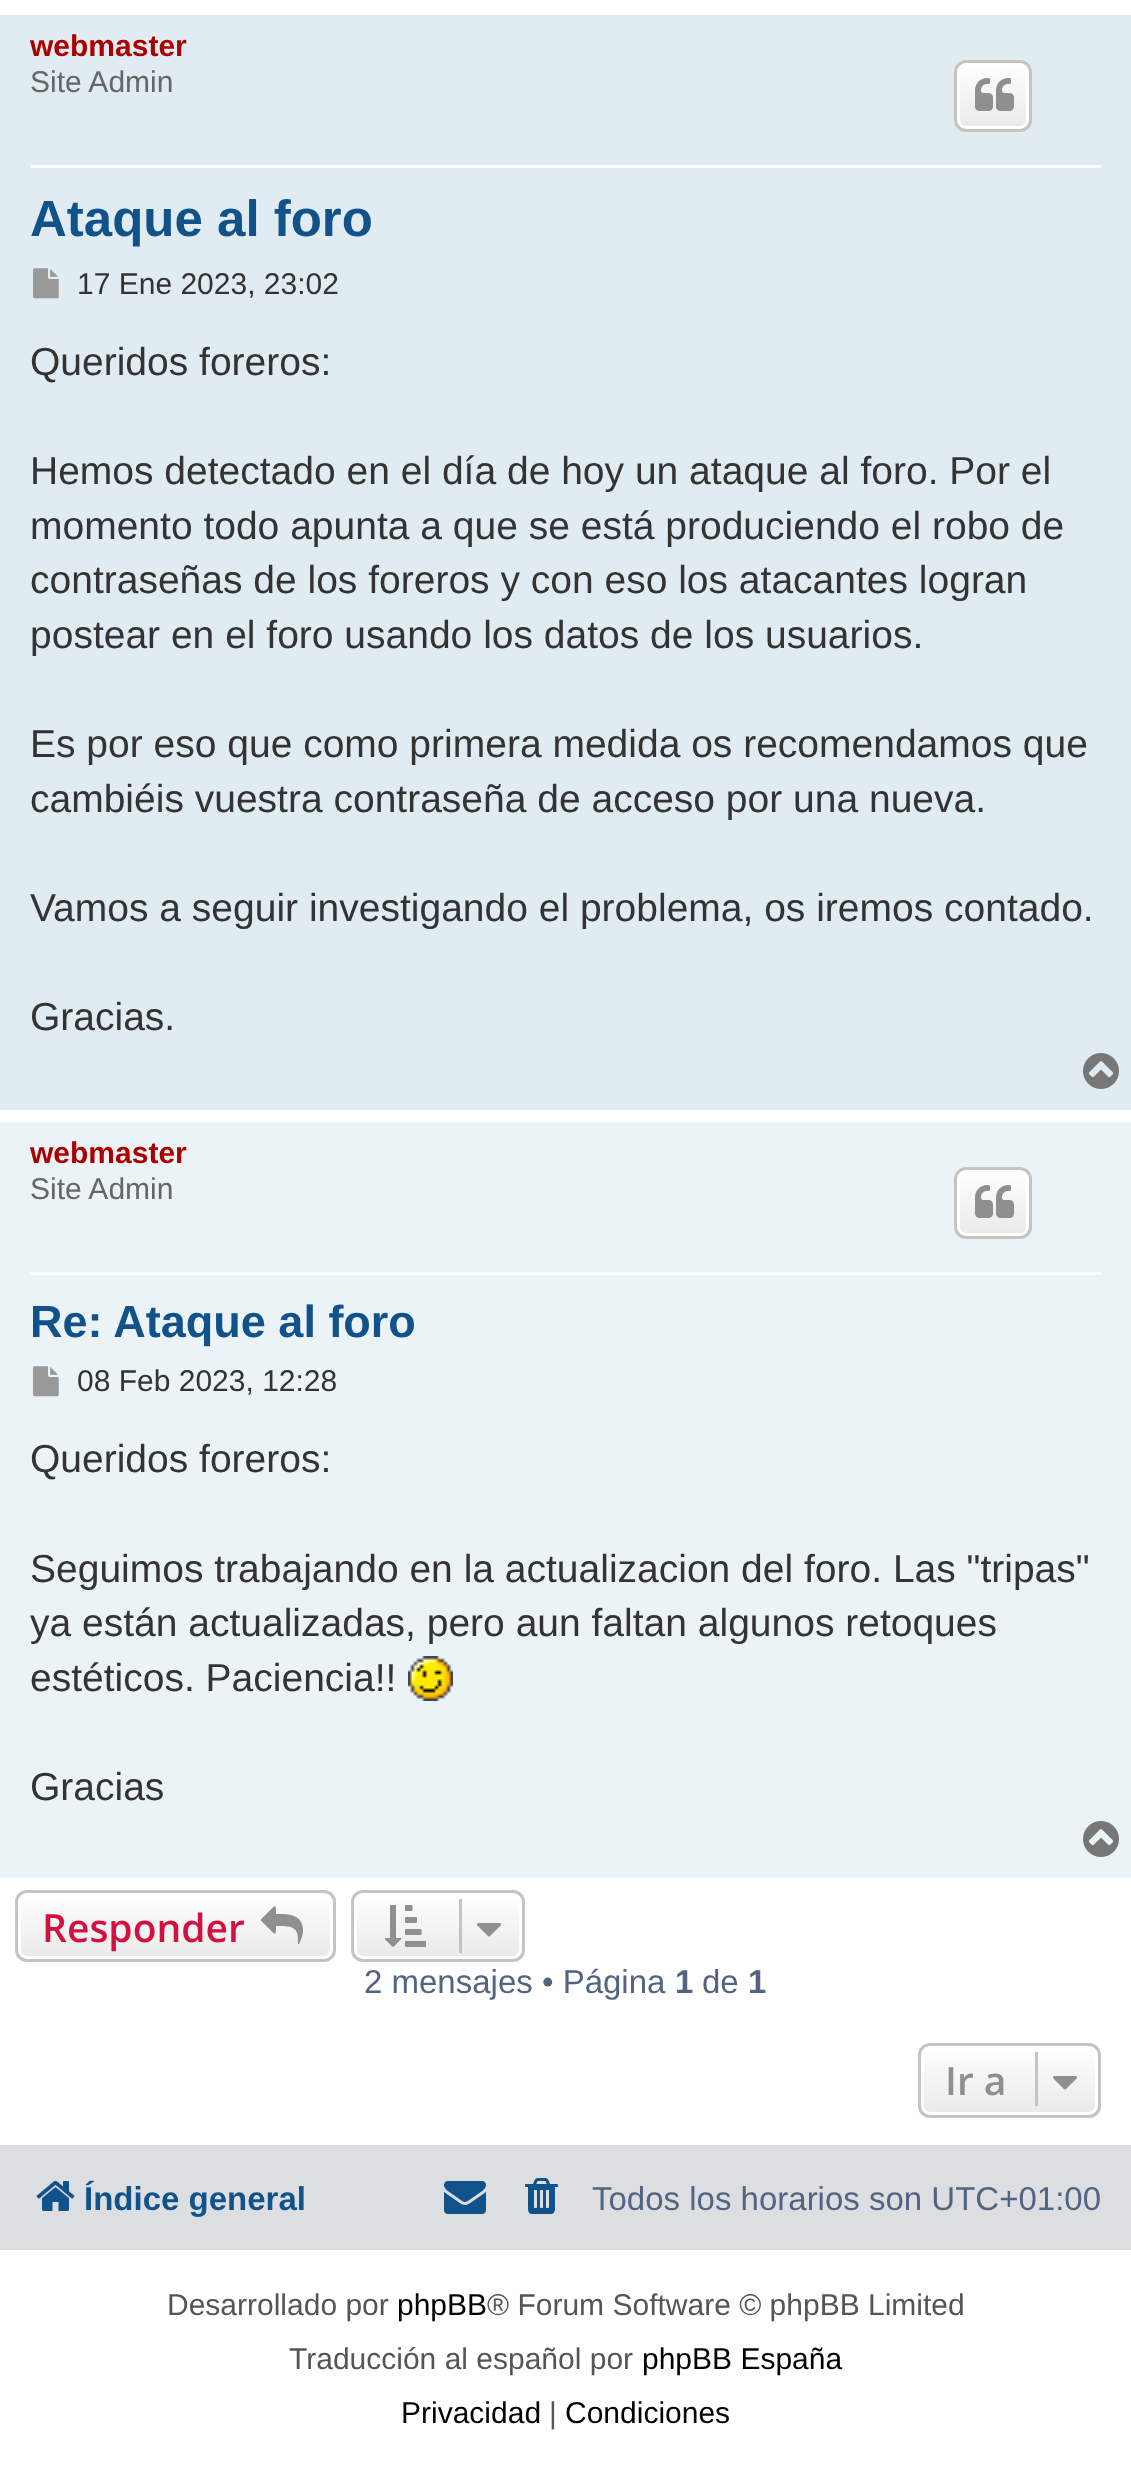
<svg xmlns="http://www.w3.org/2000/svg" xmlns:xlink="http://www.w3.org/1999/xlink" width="1131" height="2470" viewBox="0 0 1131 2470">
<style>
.cls-1{font:bold 30px Liberation Sans;fill:#aa0000}
.cls-2{font:30px Liberation Sans;fill:#666666}
.cls-3{font:bold 51px Liberation Sans;fill:#105289}
.cls-4{font:30px Liberation Sans;fill:#333333}
.cls-5{font:39px Liberation Sans;fill:#333333}
.cls-6{font:bold 45px Liberation Sans;fill:#105289}
.cls-7{font:600 39px Open Sans;fill:#d31141}
.cls-8{font:33px Liberation Sans;fill:#536482}
.cls-9{font:bold 33px Liberation Sans;fill:#536482}
.cls-10{font:600 39px Open Sans;fill:#8f8f8f}
.cls-11{font:bold 33px Liberation Sans;fill:#105289}
.cls-12{font:30px Liberation Sans;fill:#555555}
.cls-13{font:30px Liberation Sans;fill:#000000}
</style>
<defs>
<clipPath id="clip1"><rect x="954" y="60" width="78" height="72" rx="12"/></clipPath>
<linearGradient id="g1" gradientUnits="userSpaceOnUse" x1="993" y1="63" x2="993" y2="129"><stop offset="0" stop-color="#ffffff"/><stop offset="1" stop-color="#e9e9e9"/></linearGradient>
<clipPath id="clip2"><rect x="954" y="1167" width="78" height="72" rx="12"/></clipPath>
<linearGradient id="g2" gradientUnits="userSpaceOnUse" x1="993" y1="1170" x2="993" y2="1236"><stop offset="0" stop-color="#ffffff"/><stop offset="1" stop-color="#e9e9e9"/></linearGradient>
<clipPath id="clip3"><rect x="15" y="1890" width="321" height="72" rx="12"/></clipPath>
<linearGradient id="g3" gradientUnits="userSpaceOnUse" x1="176" y1="1893" x2="176" y2="1959"><stop offset="0" stop-color="#ffffff"/><stop offset="1" stop-color="#e9e9e9"/></linearGradient>
<clipPath id="clip4"><rect x="351" y="1890" width="174" height="72" rx="12"/></clipPath>
<linearGradient id="g4" gradientUnits="userSpaceOnUse" x1="438" y1="1893" x2="438" y2="1959"><stop offset="0" stop-color="#ffffff"/><stop offset="1" stop-color="#e9e9e9"/></linearGradient>
<clipPath id="clip5"><rect x="918" y="2043" width="183" height="75" rx="12"/></clipPath>
<linearGradient id="g5" gradientUnits="userSpaceOnUse" x1="1010" y1="2046" x2="1010" y2="2115"><stop offset="0" stop-color="#ffffff"/><stop offset="1" stop-color="#e9e9e9"/></linearGradient>
</defs>
<rect width="100%" height="100%" fill="#ffffff"/>
<rect fill="#e1ebf2" x="0" y="15" width="1131" height="1095"/>
<rect fill="#ffffff" x="30" y="165" width="1071" height="3"/>
<g clip-path="url(#clip1)">
<rect fill="url(#g1)" x="954" y="63" width="78" height="66"/>
</g>
<rect fill="none" stroke="#ffffff" stroke-width="3" x="958.5" y="64.5" width="69" height="63" rx="7.5"/>
<rect fill="none" stroke="#c7c3bf" stroke-width="3" x="955.5" y="61.5" width="75" height="69" rx="10.5"/>
<image xlink:href="image0.png" x="975" y="78" width="39" height="33"/>
<image xlink:href="image1.png" x="33" y="268" width="26" height="31"/>
<image xlink:href="image2.png" x="1083" y="1053" width="36" height="36"/>
<rect fill="#ecf3f7" x="0" y="1122" width="1131" height="756"/>
<rect fill="#ffffff" x="30" y="1272" width="1071" height="3"/>
<g clip-path="url(#clip2)">
<rect fill="url(#g2)" x="954" y="1170" width="78" height="66"/>
</g>
<rect fill="none" stroke="#ffffff" stroke-width="3" x="958.5" y="1171.5" width="69" height="63" rx="7.5"/>
<rect fill="none" stroke="#c7c3bf" stroke-width="3" x="955.5" y="1168.5" width="75" height="69" rx="10.5"/>
<image xlink:href="image0.png" x="975" y="1185" width="39" height="33"/>
<image xlink:href="image3.png" x="33" y="1366" width="26" height="31"/>
<image xlink:href="image4.png" x="408" y="1656" width="45" height="45"/>
<image xlink:href="image5.png" x="1083" y="1821" width="36" height="36"/>
<g clip-path="url(#clip3)">
<rect fill="url(#g3)" x="15" y="1893" width="321" height="66"/>
</g>
<rect fill="none" stroke="#ffffff" stroke-width="3" x="19.5" y="1894.5" width="312" height="63" rx="7.5"/>
<rect fill="none" stroke="#c7c3bf" stroke-width="3" x="16.5" y="1891.5" width="318" height="69" rx="10.5"/>
<image xlink:href="image6.png" x="261" y="1906" width="42" height="38"/>
<g clip-path="url(#clip4)">
<rect fill="url(#g4)" x="351" y="1893" width="174" height="66"/>
</g>
<rect fill="none" stroke="#ffffff" stroke-width="3" x="355.5" y="1894.5" width="165" height="63" rx="7.5"/>
<rect fill="none" stroke="#c7c3bf" stroke-width="3" x="352.5" y="1891.5" width="171" height="69" rx="10.5"/>
<image xlink:href="image7.png" x="384" y="1905" width="42" height="42"/>
<rect fill="#c7c3bf" x="459" y="1899" width="3" height="54"/>
<image xlink:href="image8.png" x="477" y="1923" width="24" height="14"/>
<g clip-path="url(#clip5)">
<rect fill="url(#g5)" x="918" y="2046" width="183" height="69"/>
</g>
<rect fill="none" stroke="#ffffff" stroke-width="3" x="922.5" y="2047.5" width="174" height="66" rx="7.5"/>
<rect fill="none" stroke="#c7c3bf" stroke-width="3" x="919.5" y="2044.5" width="180" height="72" rx="10.5"/>
<rect fill="#c7c3bf" x="1035" y="2052" width="3" height="54"/>
<image xlink:href="image9.png" x="1053" y="2076" width="24" height="14"/>
<rect fill="#dcdee2" x="0" y="2145" width="1131" height="105"/>
<image xlink:href="image10.png" x="36" y="2180" width="39" height="31"/>
<image xlink:href="image11.png" x="444" y="2181" width="42" height="33"/>
<image xlink:href="image12.png" x="525" y="2178" width="33" height="36"/>
<text class="cls-1" x="30" y="56">webmaster</text>
<text class="cls-2" x="30" y="92">Site Admin</text>
<text class="cls-3" x="30" y="236">Ataque al foro</text>
<text class="cls-4" x="77" y="294">17 Ene 2023, 23:02</text>
<text class="cls-5" x="30" y="375">Queridos foreros:</text>
<text class="cls-5"><tspan x="30" y="484">Hemos detectado en el día de hoy un ataque al foro. Por el</tspan><tspan x="30" y="539">momento todo apunta a que se está produciendo el robo de</tspan><tspan x="30" y="593">contraseñas de los foreros y con eso los atacantes logran</tspan><tspan x="30" y="648">postear en el foro usando los datos de los usuarios.</tspan></text>
<text class="cls-5"><tspan x="30" y="757">Es por eso que como primera medida os recomendamos que</tspan><tspan x="30" y="812">cambiéis vuestra contraseña de acceso por una nueva.</tspan></text>
<text class="cls-5" x="30" y="921">Vamos a seguir investigando el problema, os iremos contado.</text>
<text class="cls-5" x="30" y="1030">Gracias.</text>
<text class="cls-1" x="30" y="1163">webmaster</text>
<text class="cls-2" x="30" y="1199">Site Admin</text>
<text class="cls-6" x="30" y="1337">Re: Ataque al foro</text>
<text class="cls-4" x="77" y="1391">08 Feb 2023, 12:28</text>
<text class="cls-5" x="30" y="1472">Queridos foreros:</text>
<text class="cls-5"><tspan x="30" y="1582">Seguimos trabajando en la actualizacion del foro. Las "tripas"</tspan><tspan x="30" y="1636">ya están actualizadas, pero aun faltan algunos retoques</tspan><tspan x="30" y="1691">estéticos. Paciencia!!</tspan></text>
<text class="cls-5" x="30" y="1800">Gracias</text>
<text class="cls-7" x="42" y="1942">Responder</text>
<text class="cls-8" x="364" y="1993">2 mensajes • Página</text>
<text class="cls-9" x="675" y="1993">1</text>
<text class="cls-8" x="702" y="1993">de</text>
<text class="cls-9" x="748" y="1993">1</text>
<text class="cls-10" x="945" y="2095">Ir a</text>
<text class="cls-11" x="84" y="2210">Índice general</text>
<text class="cls-8" x="592" y="2210">Todos los horarios son UTC+01:00</text>
<text class="cls-12" x="167" y="2315">Desarrollado por</text>
<text class="cls-13" x="397" y="2315">phpBB</text>
<text class="cls-12" x="487" y="2315">® Forum Software © phpBB Limited</text>
<text class="cls-12" x="289" y="2369">Traducción al español por</text>
<text class="cls-13" x="642" y="2369">phpBB España</text>
<text class="cls-13" x="401" y="2423">Privacidad</text>
<text class="cls-12" x="549" y="2423">|</text>
<text class="cls-13" x="565" y="2423">Condiciones</text>
</svg>
